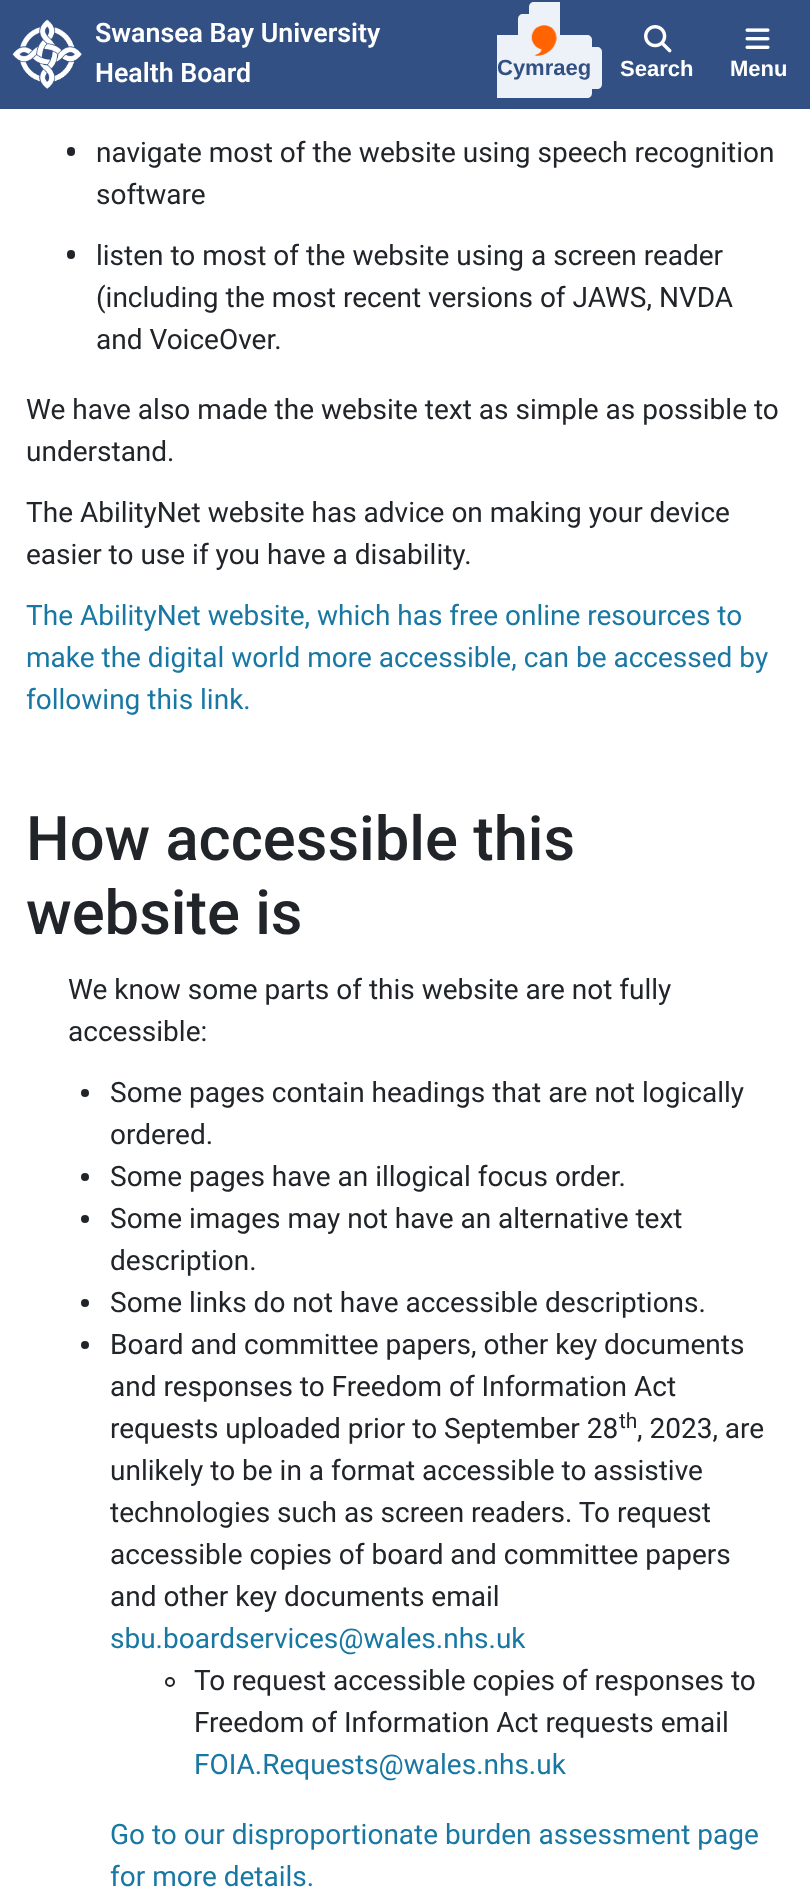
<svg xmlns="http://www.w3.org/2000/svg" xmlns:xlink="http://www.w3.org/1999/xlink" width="810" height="1897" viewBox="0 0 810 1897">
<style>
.cls-1{font:600 26.75px Roboto;fill:#ffffff}
.cls-2{font:bold 22px Liberation Sans;fill:#325083}
.cls-3{font:bold 22px Liberation Sans;fill:#ffffff}
.cls-4{font:28px Roboto;fill:#212529}
.cls-5{font:28px Roboto;fill:#1978a3}
.cls-6{font:500 61.5px Roboto;fill:#212529}
.cls-7{font:21px Roboto;fill:#212529}
</style>
<rect width="100%" height="100%" fill="#ffffff"/>
<rect fill="#325083" x="0" y="0" width="810" height="109"/>
<image xlink:href="image0.png" x="12" y="19" width="70" height="70"/>
<path fill="#edf1f8" d="M534 2H560V77H534C531 77 529 75 529 72V7C529 4 531 2 534 2Z"/>
<path fill="#edf1f8" d="M497 35H587C590 35 592 37 592 40V93C592 96 590 98 587 98H497Z"/>
<path fill="#edf1f8" d="M523 14H560V68H523C520 68 518 66 518 63V19C518 16 520 14 523 14Z"/>
<path fill="#edf1f8" d="M497 47H597C600 47 602 49 602 52V84C602 87 600 89 597 89H497Z"/>
<image xlink:href="image1.png" x="531" y="25" width="26" height="31"/>
<image xlink:href="image2.png" x="644" y="25" width="28" height="28"/>
<image xlink:href="image3.png" x="745" y="28" width="25" height="21"/>
<rect fill="#212529" x="67" y="147" width="8" height="9" rx="4"/>
<rect fill="#212529" x="67" y="250" width="8" height="9" rx="4"/>
<circle fill="#212529" cx="85" cy="1093" r="4"/>
<circle fill="#212529" cx="85" cy="1177" r="4"/>
<circle fill="#212529" cx="85" cy="1219" r="4"/>
<circle fill="#212529" cx="85" cy="1303" r="4"/>
<circle fill="#212529" cx="85" cy="1345" r="4"/>
<circle fill="none" stroke="#212529" stroke-width="2" cx="170" cy="1682" r="4"/>
<text class="cls-1"><tspan x="95" y="42">Swansea Bay University</tspan><tspan x="95" y="82">Health Board</tspan></text>
<text class="cls-2" x="497" y="75">Cymraeg</text>
<text class="cls-3" x="620" y="76">Search</text>
<text class="cls-3" x="730" y="76">Menu</text>
<text class="cls-4"><tspan x="96" y="162">navigate most of the website using speech recognition</tspan><tspan x="96" y="204">software</tspan></text>
<text class="cls-4"><tspan x="96" y="265">listen to most of the website using a screen reader</tspan><tspan x="96" y="307">(including the most recent versions of JAWS, NVDA</tspan><tspan x="96" y="349">and VoiceOver.</tspan></text>
<text class="cls-4"><tspan x="26" y="419">We have also made the website text as simple as possible to</tspan><tspan x="26" y="461">understand.</tspan></text>
<text class="cls-4"><tspan x="26" y="522">The AbilityNet website has advice on making your device</tspan><tspan x="26" y="564">easier to use if you have a disability.</tspan></text>
<text class="cls-5"><tspan x="26" y="625">The AbilityNet website, which has free online resources to</tspan><tspan x="26" y="667">make the digital world more accessible, can be accessed by</tspan><tspan x="26" y="709">following this link.</tspan></text>
<text class="cls-6"><tspan x="26" y="860">How accessible this</tspan><tspan x="26" y="934">website is</tspan></text>
<text class="cls-4"><tspan x="68" y="999">We know some parts of this website are not fully</tspan><tspan x="68" y="1041">accessible:</tspan></text>
<text class="cls-4"><tspan x="110" y="1102">Some pages contain headings that are not logically</tspan><tspan x="110" y="1144">ordered.</tspan><tspan x="110" y="1186">Some pages have an illogical focus order.</tspan><tspan x="110" y="1228">Some images may not have an alternative text</tspan><tspan x="110" y="1270">description.</tspan><tspan x="110" y="1312">Some links do not have accessible descriptions.</tspan><tspan x="110" y="1354">Board and committee papers, other key documents</tspan><tspan x="110" y="1396">and responses to Freedom of Information Act</tspan><tspan x="110" y="1438">requests uploaded prior to September 28</tspan></text>
<text class="cls-7" x="619" y="1428">th</text>
<text class="cls-4" x="637" y="1438">, 2023, are</text>
<text class="cls-4"><tspan x="110" y="1480">unlikely to be in a format accessible to assistive</tspan><tspan x="110" y="1522">technologies such as screen readers. To request</tspan><tspan x="110" y="1564">accessible copies of board and committee papers</tspan><tspan x="110" y="1606">and other key documents email</tspan></text>
<text class="cls-5" x="110" y="1648">sbu.boardservices@wales.nhs.uk</text>
<text class="cls-4"><tspan x="194" y="1690">To request accessible copies of responses to</tspan><tspan x="194" y="1732">Freedom of Information Act requests email</tspan></text>
<text class="cls-5" x="194" y="1774">FOIA.Requests@wales.nhs.uk</text>
<text class="cls-5"><tspan x="110" y="1844">Go to our disproportionate burden assessment page</tspan><tspan x="110" y="1886">for more details.</tspan></text>
</svg>
